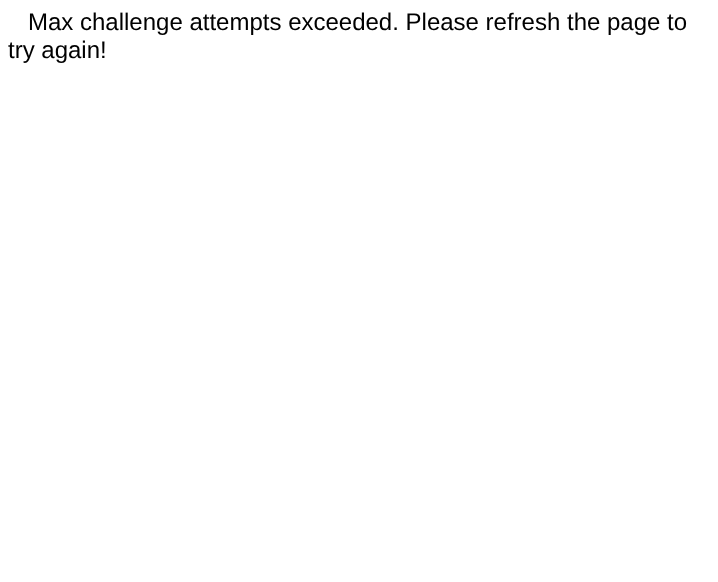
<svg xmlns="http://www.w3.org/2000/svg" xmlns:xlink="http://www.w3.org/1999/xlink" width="718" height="582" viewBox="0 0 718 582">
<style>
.cls-1{font:24px Liberation Sans;fill:#000000}
</style>
<rect width="100%" height="100%" fill="#ffffff"/>
<text class="cls-1" x="28" y="30">Max challenge attempts exceeded. Please refresh the page to</text>
<text class="cls-1" x="8" y="58">try again!</text>
</svg>
